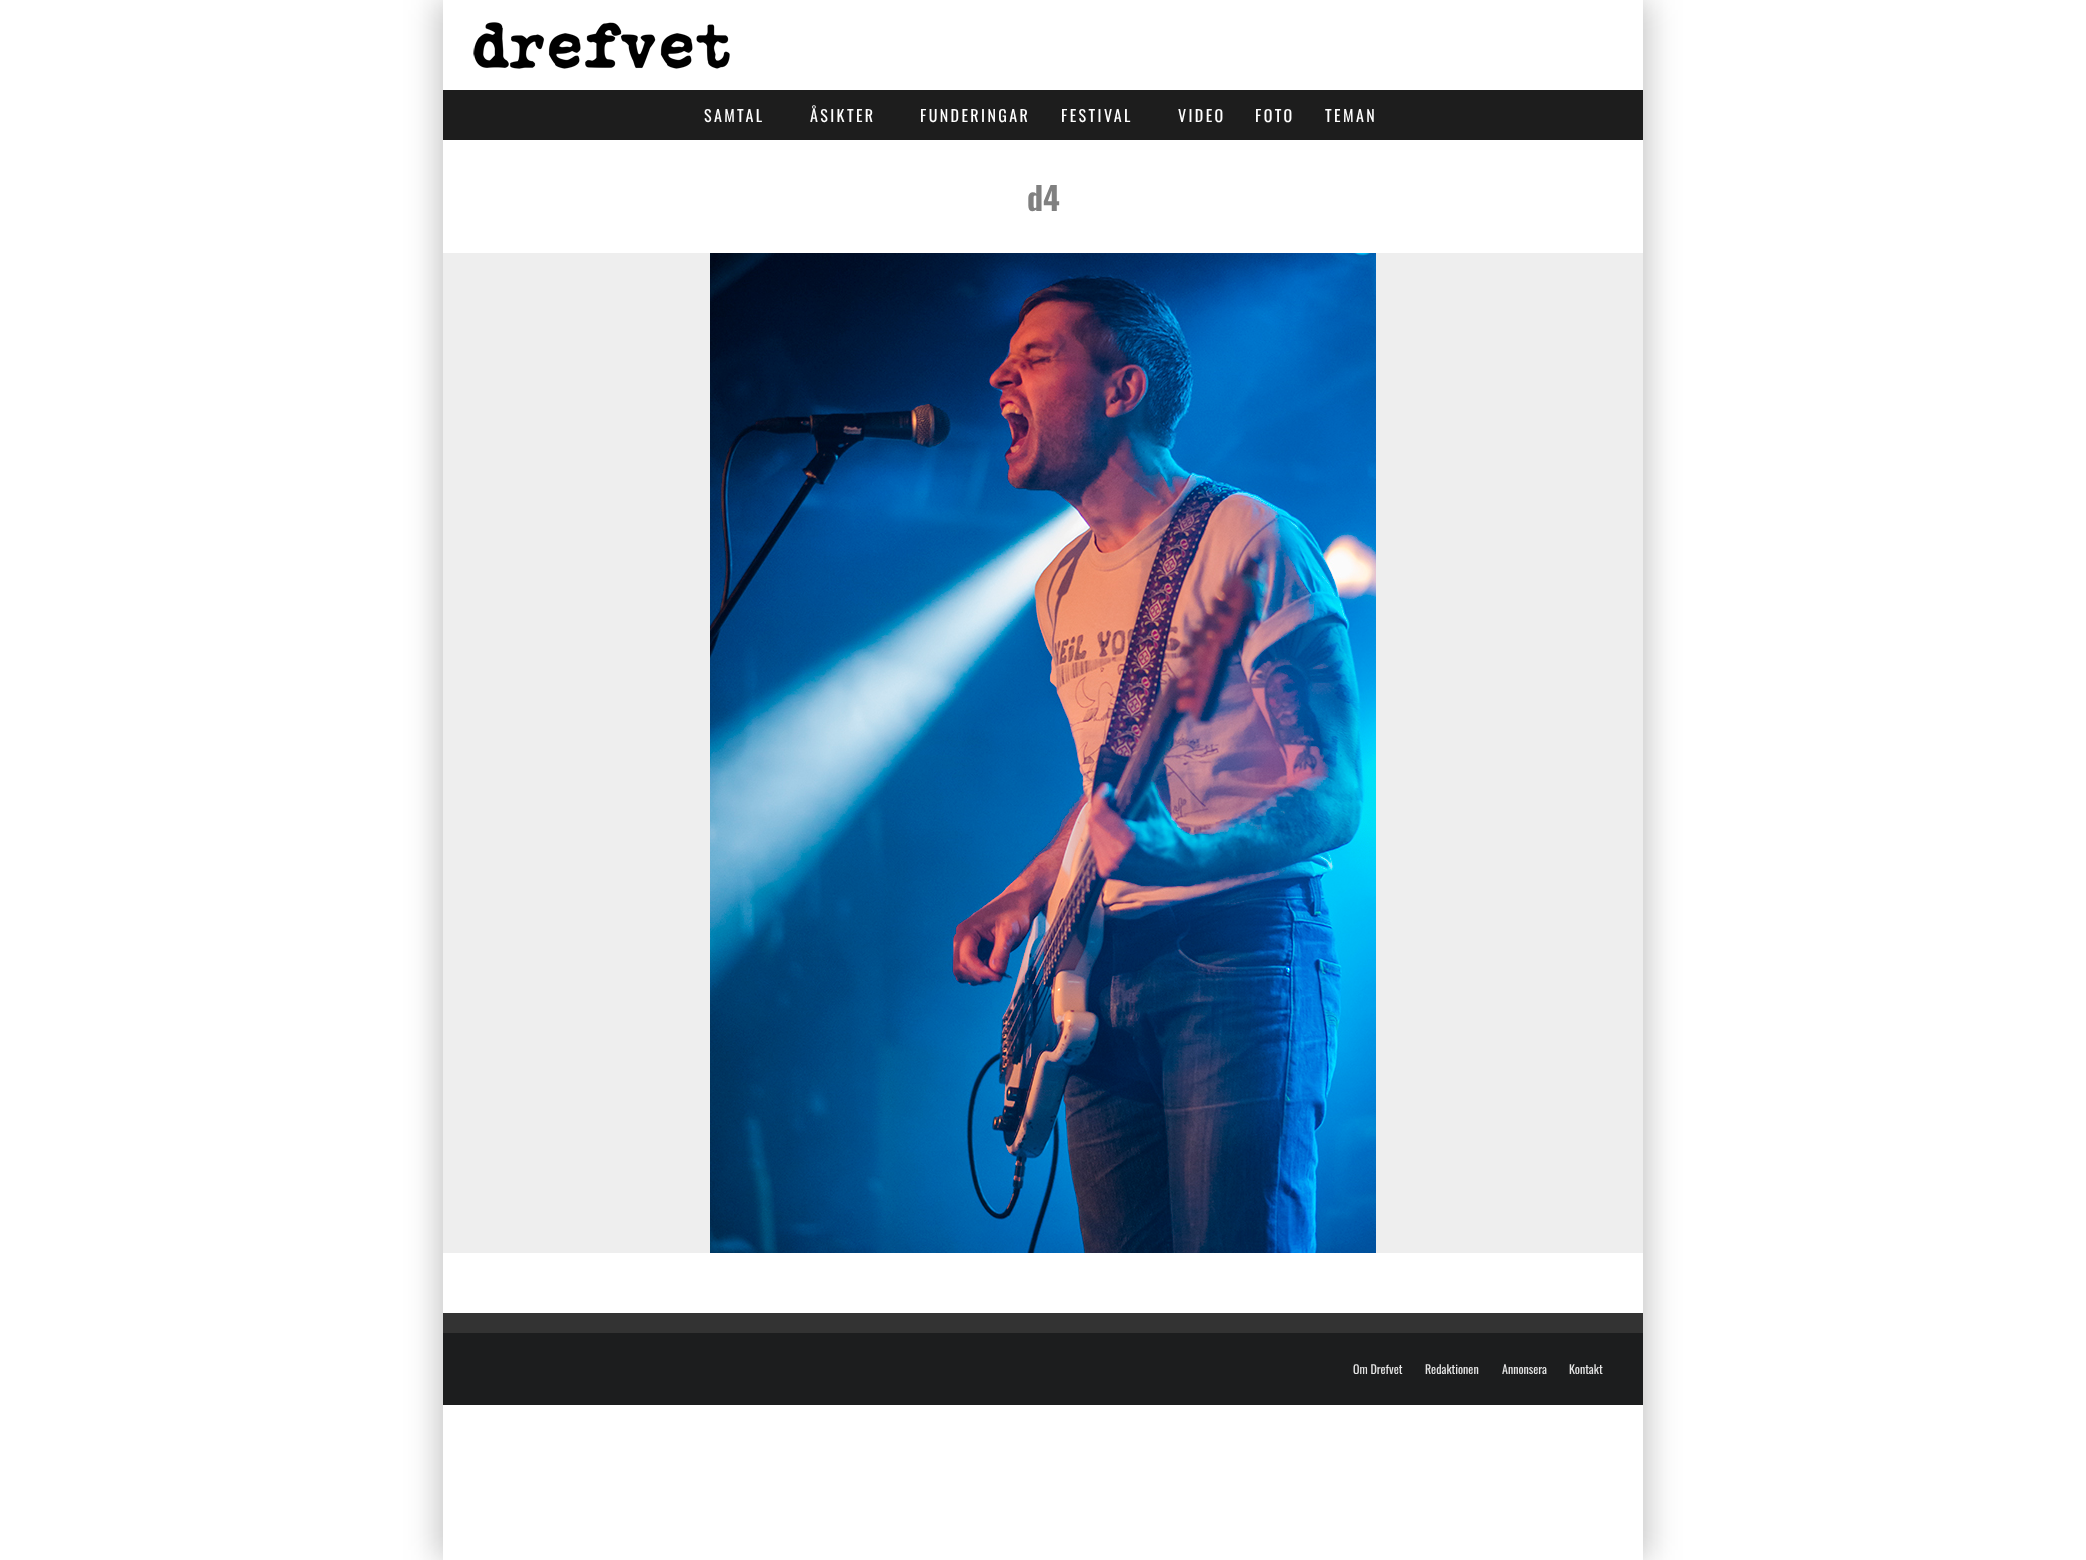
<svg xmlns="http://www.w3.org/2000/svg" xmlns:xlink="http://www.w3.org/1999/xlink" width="2086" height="1560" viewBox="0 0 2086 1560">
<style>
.cls-1{font:16px Oswald;letter-spacing:2.4px;fill:#ffffff}
.cls-2{font:bold 32px Oswald;fill:#808080}
.cls-3{font:12px Oswald;fill:#e5e5e5}
</style>
<defs>
<clipPath id="clip1"><path d="M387 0H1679V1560H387ZM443 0H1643V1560H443Z" clip-rule="evenodd"/></clipPath>
<clipPath id="clip2"><path d="M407 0H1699V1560H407ZM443 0H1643V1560H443Z" clip-rule="evenodd"/></clipPath>
</defs>
<rect width="100%" height="100%" fill="#ffffff"/>
<g clip-path="url(#clip1)">
<rect fill="#000000" fill-opacity="0.15" filter="blur(15px)" x="433" y="0" width="1200" height="1560"/>
</g>
<g clip-path="url(#clip2)">
<rect fill="#000000" fill-opacity="0.15" filter="blur(15px)" x="453" y="0" width="1200" height="1560"/>
</g>
<image xlink:href="image0.png" x="473" y="22" width="257" height="47"/>
<rect fill="#1d1d1d" x="443" y="90" width="1200" height="50"/>
<rect fill="#eeeeee" x="443" y="253" width="1200" height="1000"/>
<image xlink:href="image1.png" x="710" y="253" width="666" height="1000"/>
<rect fill="#1c1d1e" x="443" y="1333" width="1200" height="72"/>
<rect fill="#333333" x="443" y="1313" width="1200" height="20"/>
<text class="cls-1" x="704" y="122">SAMTAL</text>
<text class="cls-1" x="810" y="122">ÅSIKTER</text>
<text class="cls-1" x="920" y="122">FUNDERINGAR</text>
<text class="cls-1" x="1061" y="122">FESTIVAL</text>
<text class="cls-1" x="1178" y="122">VIDEO</text>
<text class="cls-1" x="1255" y="122">FOTO</text>
<text class="cls-1" x="1325" y="122">TEMAN</text>
<text class="cls-2" x="1027" y="211">d4</text>
<text class="cls-3" x="1353" y="1374">Om Drefvet</text>
<text class="cls-3" x="1425" y="1374">Redaktionen</text>
<text class="cls-3" x="1502" y="1374">Annonsera</text>
<text class="cls-3" x="1569" y="1374">Kontakt</text>
</svg>
